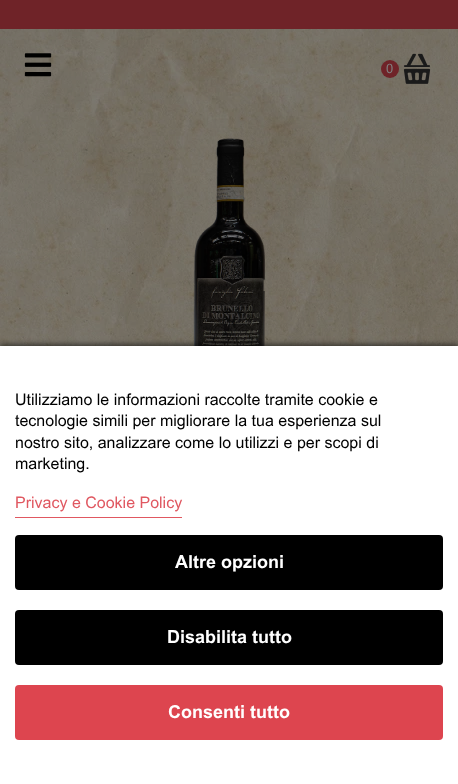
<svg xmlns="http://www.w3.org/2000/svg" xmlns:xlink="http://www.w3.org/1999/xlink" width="458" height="784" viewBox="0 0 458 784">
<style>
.cls-1{font:13px Arial;fill:#808080}
.cls-2{font:16px Arial;fill:#000000}
.cls-3{font:16px Arial;fill:#e05861}
.cls-4{font:bold 18px Arial;fill:#ffffff}
</style>
<rect width="100%" height="100%" fill="#ffffff"/>
<image xlink:href="image0.png" x="0" y="29" width="458" height="317"/>
<rect fill="#6f2328" x="0" y="0" width="458" height="29"/>
<image xlink:href="image1.png" x="24" y="53" width="28" height="24"/>
<circle fill="#6f2328" cx="390" cy="69" r="9"/>
<image xlink:href="image2.png" x="403" y="53" width="28" height="31"/>
<image xlink:href="image3.png" x="193" y="138" width="72" height="208"/>
<rect fill="#000000" fill-opacity="0.5" filter="blur(2.5px)" x="0" y="344" width="458" height="438"/>
<rect fill="#ffffff" x="0" y="346" width="458" height="438"/>
<rect fill="#e05861" x="15" y="517" width="167" height="1"/>
<rect fill="#000000" x="15" y="535" width="428" height="55" rx="4"/>
<rect fill="#000000" x="15" y="610" width="428" height="55" rx="4"/>
<rect fill="#dd454f" x="15" y="685" width="428" height="55" rx="4"/>
<text class="cls-1" x="386" y="73">0</text>
<text class="cls-2"><tspan x="15" y="405">Utilizziamo le informazioni raccolte tramite cookie e</tspan><tspan x="15" y="426">tecnologie simili per migliorare la tua esperienza sul</tspan><tspan x="15" y="448">nostro sito, analizzare come lo utilizzi e per scopi di</tspan><tspan x="15" y="469">marketing.</tspan></text>
<text class="cls-3" x="15" y="508">Privacy e Cookie Policy</text>
<text class="cls-4" x="175" y="568">Altre opzioni</text>
<text class="cls-4" x="167" y="643">Disabilita tutto</text>
<text class="cls-4" x="168" y="718">Consenti tutto</text>
</svg>
